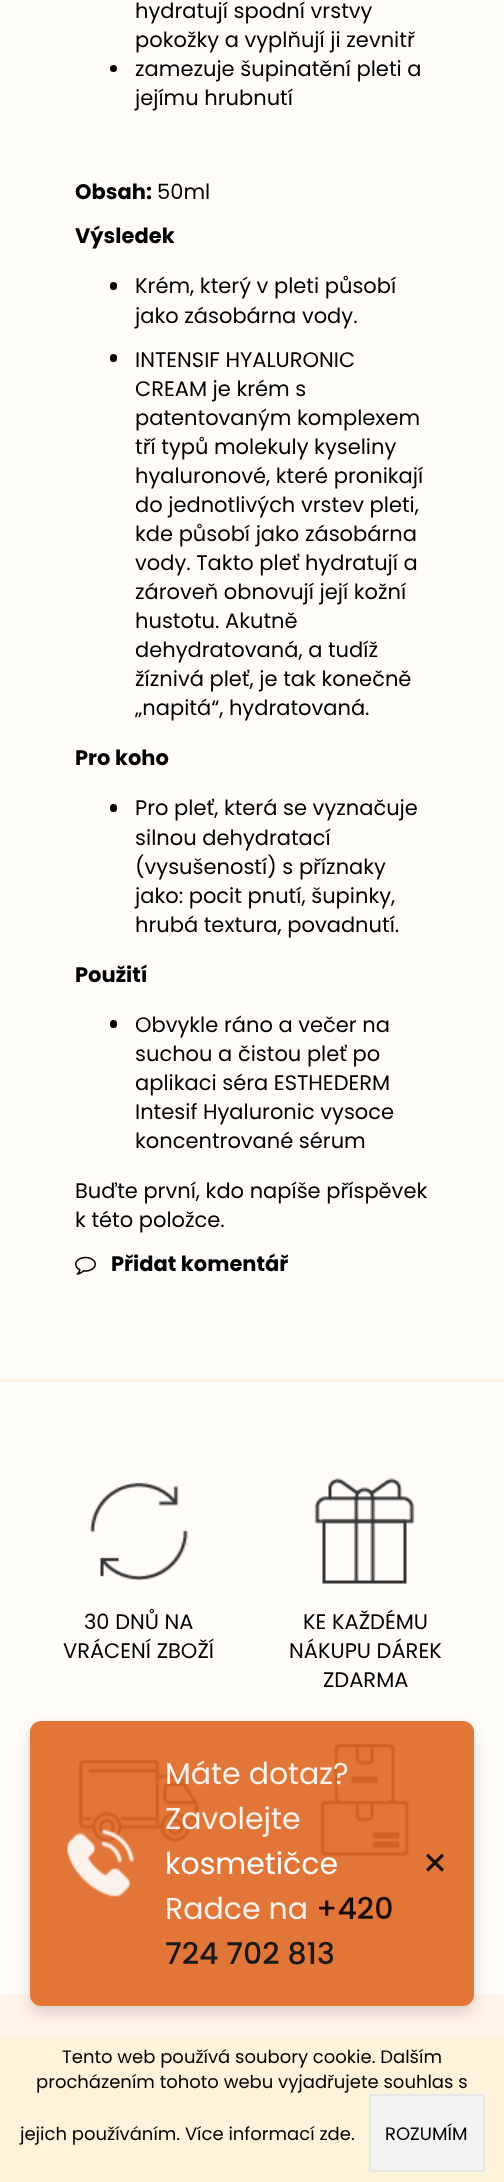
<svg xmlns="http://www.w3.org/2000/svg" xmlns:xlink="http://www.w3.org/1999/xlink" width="504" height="2182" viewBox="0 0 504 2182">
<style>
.cls-1{font:21px Poppins;fill:#000000}
.cls-2{font:bold 21px Poppins;fill:#000000}
.cls-3{font:30px Poppins;fill:#fcf1eb}
.cls-4{font:30px Poppins;fill:#ffffff}
.cls-5{font:500 30px Poppins;fill:#160b05}
.cls-6{font:500 30px Poppins;fill:#1a1919}
.cls-7{font:18px Poppins;fill:#000000}
</style>
<defs>
<clipPath id="clip1"><path d="M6 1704H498V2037H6ZM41 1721H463C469 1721 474 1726 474 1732V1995C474 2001 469 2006 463 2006H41C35 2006 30 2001 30 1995V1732C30 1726 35 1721 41 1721Z" clip-rule="evenodd"/></clipPath>
</defs>
<rect width="100%" height="100%" fill="#fffcfa"/>
<circle fill="#000000" cx="113.5" cy="68.5" r="3.5"/>
<rect fill="#000000" x="110" y="282" width="7" height="8" rx="3.5"/>
<rect fill="#000000" x="110" y="354" width="7" height="8" rx="3.5"/>
<rect fill="#000000" x="110" y="804" width="7" height="8" rx="3.5"/>
<rect fill="#000000" x="110" y="1020" width="7" height="8" rx="3.5"/>
<image xlink:href="image0.png" x="75" y="1256" width="21" height="19"/>
<rect fill="#fff3ea" x="0" y="1379" width="504" height="3"/>
<image xlink:href="image1.png" x="89" y="1482" width="99" height="99"/>
<image xlink:href="image2.png" x="314" y="1478" width="101" height="106"/>
<image xlink:href="image3.png" x="78" y="1758" width="121" height="84"/>
<image xlink:href="image4.png" x="320" y="1743" width="90" height="114"/>
<rect fill="#fff3ea" x="0" y="1994" width="504" height="42"/>
<g clip-path="url(#clip1)">
<rect fill="#000000" fill-opacity="0.14" filter="blur(7.5px)" x="30" y="1728" width="444" height="285" rx="11"/>
</g>
<rect fill="#df6622" fill-opacity="0.9" x="30" y="1721" width="444" height="285" rx="11"/>
<image xlink:href="image5.png" x="67" y="1829" width="67" height="68"/>
<image xlink:href="image6.png" x="426" y="1853" width="18" height="19"/>
<rect fill="#fdf3da" x="0" y="2036" width="504" height="146"/>
<rect fill="#f2f2f2" stroke="#e6e6e6" stroke-width="2" x="370" y="2095" width="114" height="76"/>
<text class="cls-1"><tspan x="135" y="18">hydratují spodní vrstvy</tspan><tspan x="135" y="47">pokožky a vyplňují ji zevnitř</tspan><tspan x="135" y="76">zamezuje šupinatění pleti a</tspan><tspan x="135" y="105">jejímu hrubnutí</tspan></text>
<text class="cls-2" x="75" y="199">Obsah:</text>
<text class="cls-1" x="157" y="199">50ml</text>
<text class="cls-2" x="75" y="243">Výsledek</text>
<text class="cls-1"><tspan x="135" y="293">Krém, který v pleti působí</tspan><tspan x="135" y="323">jako zásobárna vody.</tspan></text>
<text class="cls-1"><tspan x="135" y="367">INTENSIF HYALURONIC</tspan><tspan x="135" y="396">CREAM je krém s</tspan><tspan x="135" y="425">patentovaným komplexem</tspan><tspan x="135" y="454">tří typů molekuly kyseliny</tspan><tspan x="135" y="483">hyaluronové, které pronikají</tspan><tspan x="135" y="512">do jednotlivých vrstev pleti,</tspan><tspan x="135" y="541">kde působí jako zásobárna</tspan><tspan x="135" y="570">vody. Takto pleť hydratují a</tspan><tspan x="135" y="599">zároveň obnovují její kožní</tspan><tspan x="135" y="628">hustotu. Akutně</tspan><tspan x="135" y="657">dehydratovaná, a tudíž</tspan><tspan x="135" y="686">žíznivá pleť, je tak konečně</tspan><tspan x="135" y="715">„napitá“, hydratovaná.</tspan></text>
<text class="cls-2" x="75" y="765">Pro koho</text>
<text class="cls-1"><tspan x="135" y="815">Pro pleť, která se vyznačuje</tspan><tspan x="135" y="845">silnou dehydratací</tspan><tspan x="135" y="874">(vysušeností) s příznaky</tspan><tspan x="135" y="903">jako: pocit pnutí, šupinky,</tspan><tspan x="135" y="932">hrubá textura, povadnutí.</tspan></text>
<text class="cls-2" x="75" y="982">Použití</text>
<text class="cls-1"><tspan x="135" y="1032">Obvykle ráno a večer na</tspan><tspan x="135" y="1061">suchou a čistou pleť po</tspan><tspan x="135" y="1090">aplikaci séra ESTHEDERM</tspan><tspan x="135" y="1119">Intesif Hyaluronic vysoce</tspan><tspan x="135" y="1148">koncentrované sérum</tspan></text>
<text class="cls-1"><tspan x="75" y="1198">Buďte první, kdo napíše příspěvek</tspan><tspan x="75" y="1227">k této položce.</tspan></text>
<text class="cls-2" x="111" y="1271">Přidat komentář</text>
<text class="cls-1" x="84" y="1629">30 DNŮ NA</text>
<text class="cls-1" x="63" y="1658">VRÁCENÍ ZBOŽÍ</text>
<text class="cls-1" x="303" y="1629">KE KAŽDÉMU</text>
<text class="cls-1" x="289" y="1658">NÁKUPU DÁREK</text>
<text class="cls-1" x="323" y="1687">ZDARMA</text>
<text class="cls-3"><tspan x="165" y="1784">Máte dotaz?</tspan><tspan x="165" y="1829">Zavolejte</tspan></text>
<text class="cls-4" x="165" y="1874">kosmetičce</text>
<text class="cls-3" x="165" y="1919">Radce na</text>
<text class="cls-5" x="316" y="1919">+420</text>
<text class="cls-6" x="165" y="1964">724 702 813</text>
<text class="cls-7" x="62" y="2063">Tento web používá soubory cookie. Dalším</text>
<text class="cls-7" x="36" y="2088">procházením tohoto webu vyjadřujete souhlas s</text>
<text class="cls-7" x="20" y="2140">jejich používáním. Více informací zde.</text>
<text class="cls-7" x="385" y="2140">ROZUMÍM</text>
</svg>
